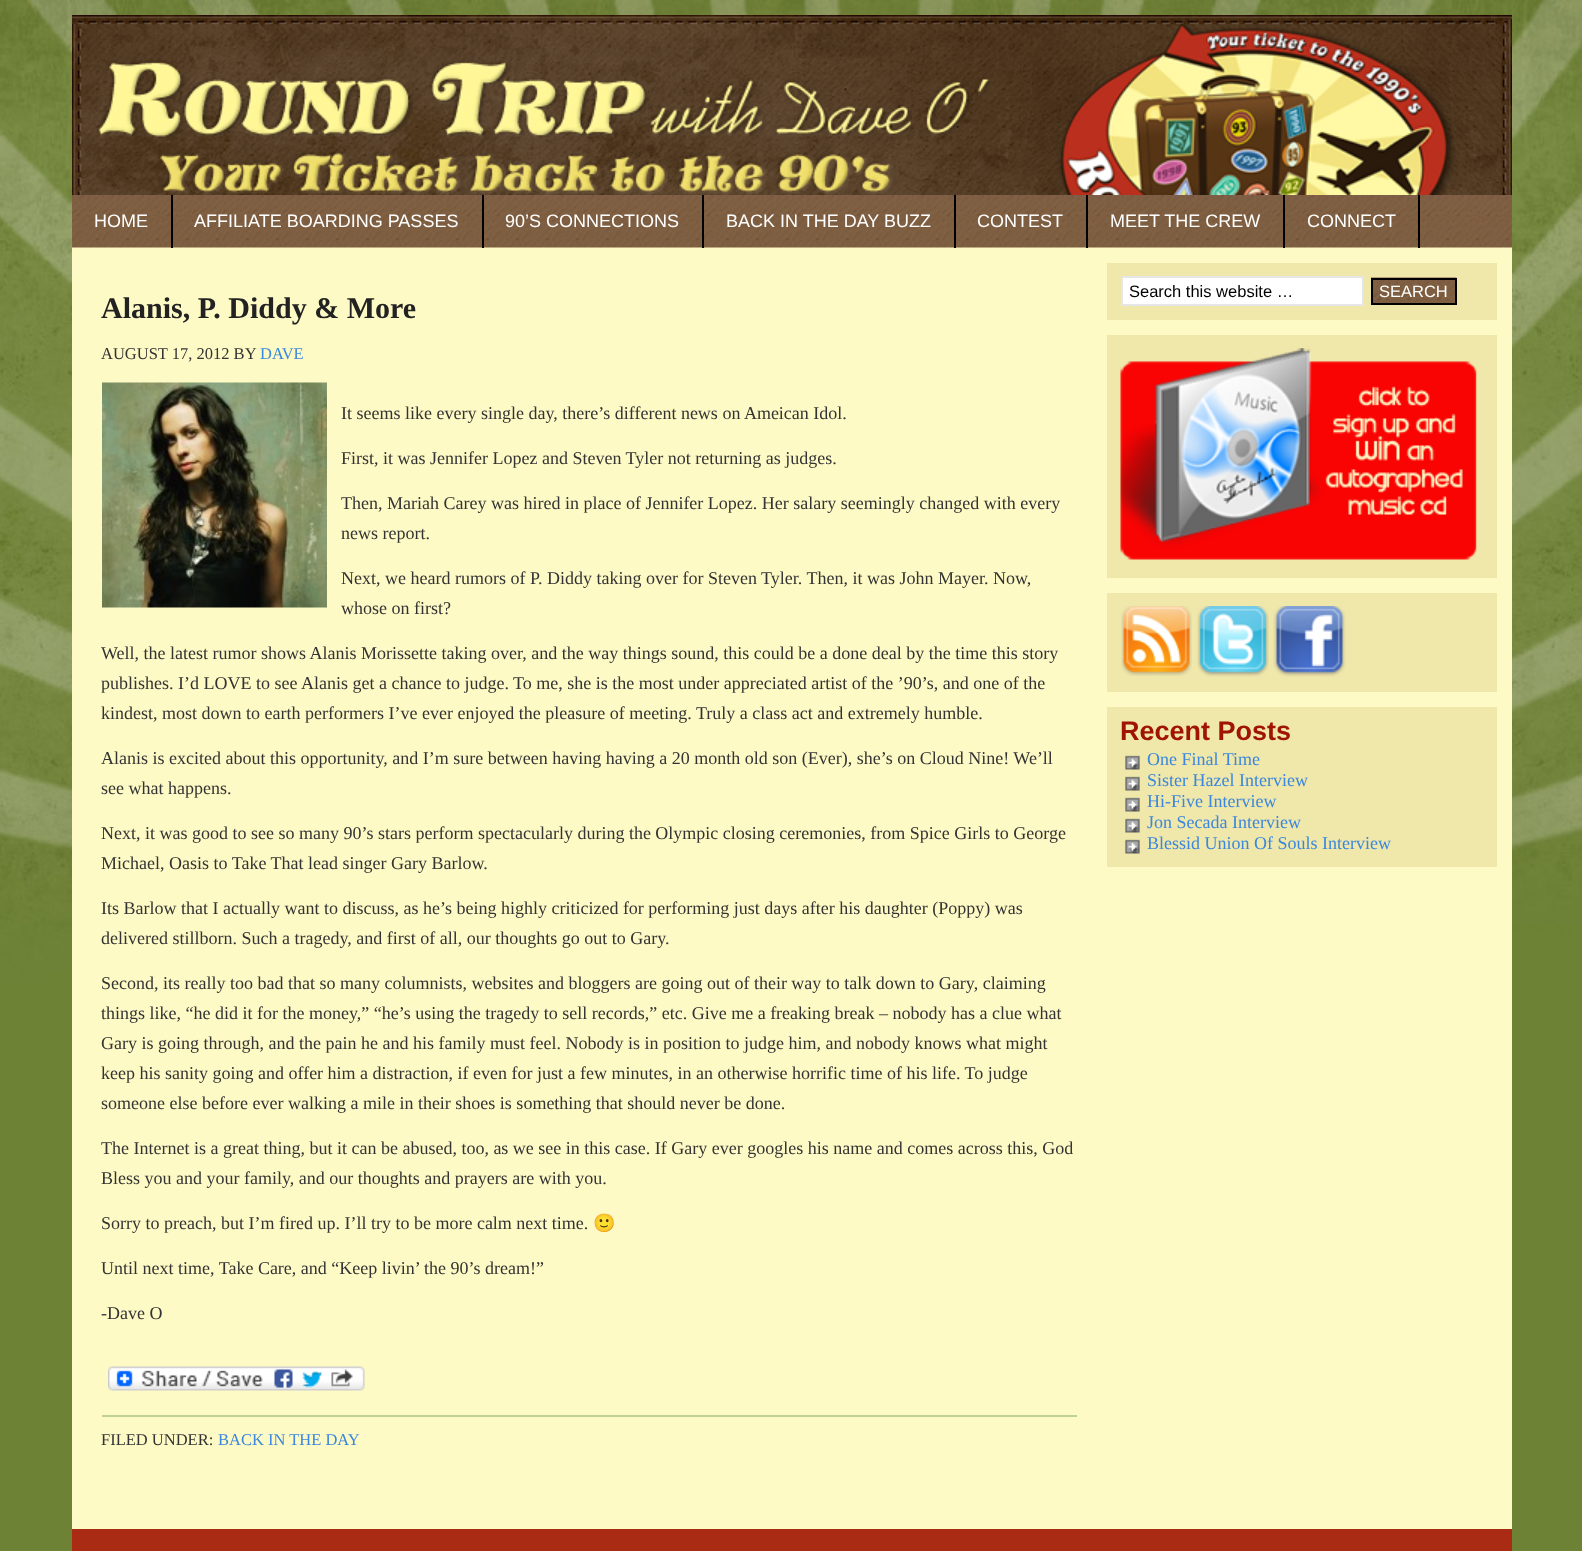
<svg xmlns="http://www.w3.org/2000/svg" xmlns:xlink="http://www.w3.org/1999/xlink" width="1582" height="1551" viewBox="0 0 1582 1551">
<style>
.cls-1{font:18px Liberation Sans;fill:#ffffff}
.cls-2{font:bold 30px Liberation Serif;fill:#222222}
.cls-3{font:16.5px Liberation Serif;fill:#333333}
.cls-4{font:16.5px Liberation Serif;fill:#3a87dd}
.cls-5{font:18px Liberation Serif;fill:#333333}
.cls-6{font:18px Noto Color Emoji;fill:#333333}
.cls-7{font:16.5px Liberation Sans;fill:#000000}
.cls-8{font:16.5px Liberation Sans;fill:#ffffff}
.cls-9{font:bold 27px Liberation Sans;fill:#a01403}
.cls-10{font:18px Liberation Serif;fill:#3a87dd}
</style>
<rect width="100%" height="100%" fill="#6d8235"/>
<image xlink:href="image0.png" x="0" y="0" width="1582" height="983"/>
<rect fill="#fefac5" x="72" y="247" width="1440" height="1282"/>
<image xlink:href="image1.png" x="72" y="15" width="1440" height="180"/>
<image xlink:href="image2.png" x="72" y="195" width="1440" height="53"/>
<rect fill="#000000" x="171" y="195" width="2" height="53"/>
<rect fill="#000000" x="482" y="195" width="2" height="53"/>
<rect fill="#000000" x="702" y="195" width="2" height="53"/>
<rect fill="#000000" x="954" y="195" width="2" height="53"/>
<rect fill="#000000" x="1086" y="195" width="2" height="53"/>
<rect fill="#000000" x="1283" y="195" width="2" height="53"/>
<rect fill="#000000" x="1418" y="195" width="2" height="53"/>
<image xlink:href="image3.png" x="102" y="382" width="225" height="226"/>
<image xlink:href="image4.png" x="108" y="1366" width="257" height="25"/>
<rect fill="#c0d291" x="102" y="1415" width="975" height="2"/>
<rect fill="#f0e7aa" x="1107" y="263" width="390" height="57"/>
<rect fill="#ffffff" stroke="#e6e6e6" stroke-width="2" x="1122" y="277" width="241" height="28"/>
<image xlink:href="image5.png" x="1371" y="277" width="86" height="26"/>
<rect fill="none" stroke="#000000" stroke-width="2" x="1372" y="279" width="84" height="25"/>
<rect fill="#f0e7aa" x="1107" y="335" width="390" height="243"/>
<image xlink:href="image6.png" x="1120" y="348" width="357" height="212"/>
<rect fill="#f0e7aa" x="1107" y="593" width="390" height="99"/>
<image xlink:href="image7.png" x="1121" y="606" width="71" height="70"/>
<image xlink:href="image8.png" x="1197" y="606" width="72" height="71"/>
<image xlink:href="image9.png" x="1273" y="606" width="73" height="71"/>
<rect fill="#f0e7aa" x="1107" y="707" width="390" height="160"/>
<image xlink:href="image10.png" x="1125" y="755" width="15" height="15"/>
<image xlink:href="image10.png" x="1125" y="776" width="15" height="15"/>
<image xlink:href="image10.png" x="1125" y="797" width="15" height="15"/>
<image xlink:href="image10.png" x="1125" y="818" width="15" height="15"/>
<image xlink:href="image10.png" x="1125" y="839" width="15" height="15"/>
<rect fill="#a92b13" x="72" y="1529" width="1440" height="22"/>
<text class="cls-1" x="94" y="227">HOME</text>
<text class="cls-1" x="194" y="227">AFFILIATE BOARDING PASSES</text>
<text class="cls-1" x="505" y="227">90’S CONNECTIONS</text>
<text class="cls-1" x="726" y="227">BACK IN THE DAY BUZZ</text>
<text class="cls-1" x="977" y="227">CONTEST</text>
<text class="cls-1" x="1110" y="227">MEET THE CREW</text>
<text class="cls-1" x="1307" y="227">CONNECT</text>
<text class="cls-2" x="101" y="318">Alanis, P. Diddy &amp; More</text>
<text class="cls-3" x="101" y="359">AUGUST 17, 2012 BY</text>
<text class="cls-4" x="260" y="359">DAVE</text>
<text class="cls-5" x="341" y="419">It seems like every single day, there’s different news on Ameican Idol.</text>
<text class="cls-5" x="341" y="464">First, it was Jennifer Lopez and Steven Tyler not returning as judges.</text>
<text class="cls-5"><tspan x="341" y="509">Then, Mariah Carey was hired in place of Jennifer Lopez. Her salary seemingly changed with every</tspan><tspan x="341" y="539">news report.</tspan></text>
<text class="cls-5"><tspan x="341" y="584">Next, we heard rumors of P. Diddy taking over for Steven Tyler. Then, it was John Mayer. Now,</tspan><tspan x="341" y="614">whose on first?</tspan></text>
<text class="cls-5"><tspan x="101" y="659">Well, the latest rumor shows Alanis Morissette taking over, and the way things sound, this could be a done deal by the time this story</tspan><tspan x="101" y="689">publishes. I’d LOVE to see Alanis get a chance to judge. To me, she is the most under appreciated artist of the ’90’s, and one of the</tspan><tspan x="101" y="719">kindest, most down to earth performers I’ve ever enjoyed the pleasure of meeting. Truly a class act and extremely humble.</tspan></text>
<text class="cls-5"><tspan x="101" y="764">Alanis is excited about this opportunity, and I’m sure between having having a 20 month old son (Ever), she’s on Cloud Nine! We’ll</tspan><tspan x="101" y="794">see what happens.</tspan></text>
<text class="cls-5"><tspan x="101" y="839">Next, it was good to see so many 90’s stars perform spectacularly during the Olympic closing ceremonies, from Spice Girls to George</tspan><tspan x="101" y="869">Michael, Oasis to Take That lead singer Gary Barlow.</tspan></text>
<text class="cls-5"><tspan x="101" y="914">Its Barlow that I actually want to discuss, as he’s being highly criticized for performing just days after his daughter (Poppy) was</tspan><tspan x="101" y="944">delivered stillborn. Such a tragedy, and first of all, our thoughts go out to Gary.</tspan></text>
<text class="cls-5"><tspan x="101" y="989">Second, its really too bad that so many columnists, websites and bloggers are going out of their way to talk down to Gary, claiming</tspan><tspan x="101" y="1019">things like, “he did it for the money,” “he’s using the tragedy to sell records,” etc. Give me a freaking break – nobody has a clue what</tspan><tspan x="101" y="1049">Gary is going through, and the pain he and his family must feel. Nobody is in position to judge him, and nobody knows what might</tspan><tspan x="101" y="1079">keep his sanity going and offer him a distraction, if even for just a few minutes, in an otherwise horrific time of his life. To judge</tspan><tspan x="101" y="1109">someone else before ever walking a mile in their shoes is something that should never be done.</tspan></text>
<text class="cls-5"><tspan x="101" y="1154">The Internet is a great thing, but it can be abused, too, as we see in this case. If Gary ever googles his name and comes across this, God</tspan><tspan x="101" y="1184">Bless you and your family, and our thoughts and prayers are with you.</tspan></text>
<text class="cls-5" x="101" y="1229">Sorry to preach, but I’m fired up. I’ll try to be more calm next time.</text>
<text class="cls-6" x="593" y="1229">🙂</text>
<text class="cls-5" x="101" y="1274">Until next time, Take Care, and “Keep livin’ the 90’s dream!”</text>
<text class="cls-5" x="101" y="1319">-Dave O</text>
<text class="cls-3" x="101" y="1445">FILED UNDER:</text>
<text class="cls-4" x="218" y="1445">BACK IN THE DAY</text>
<text class="cls-7" x="1129" y="297">Search this website …</text>
<text class="cls-8" x="1379" y="297">SEARCH</text>
<text class="cls-9" x="1120" y="740">Recent Posts</text>
<text class="cls-10"><tspan x="1147" y="765">One Final Time</tspan><tspan x="1147" y="786">Sister Hazel Interview</tspan><tspan x="1147" y="807">Hi-Five Interview</tspan><tspan x="1147" y="828">Jon Secada Interview</tspan><tspan x="1147" y="849">Blessid Union Of Souls Interview</tspan></text>
</svg>
